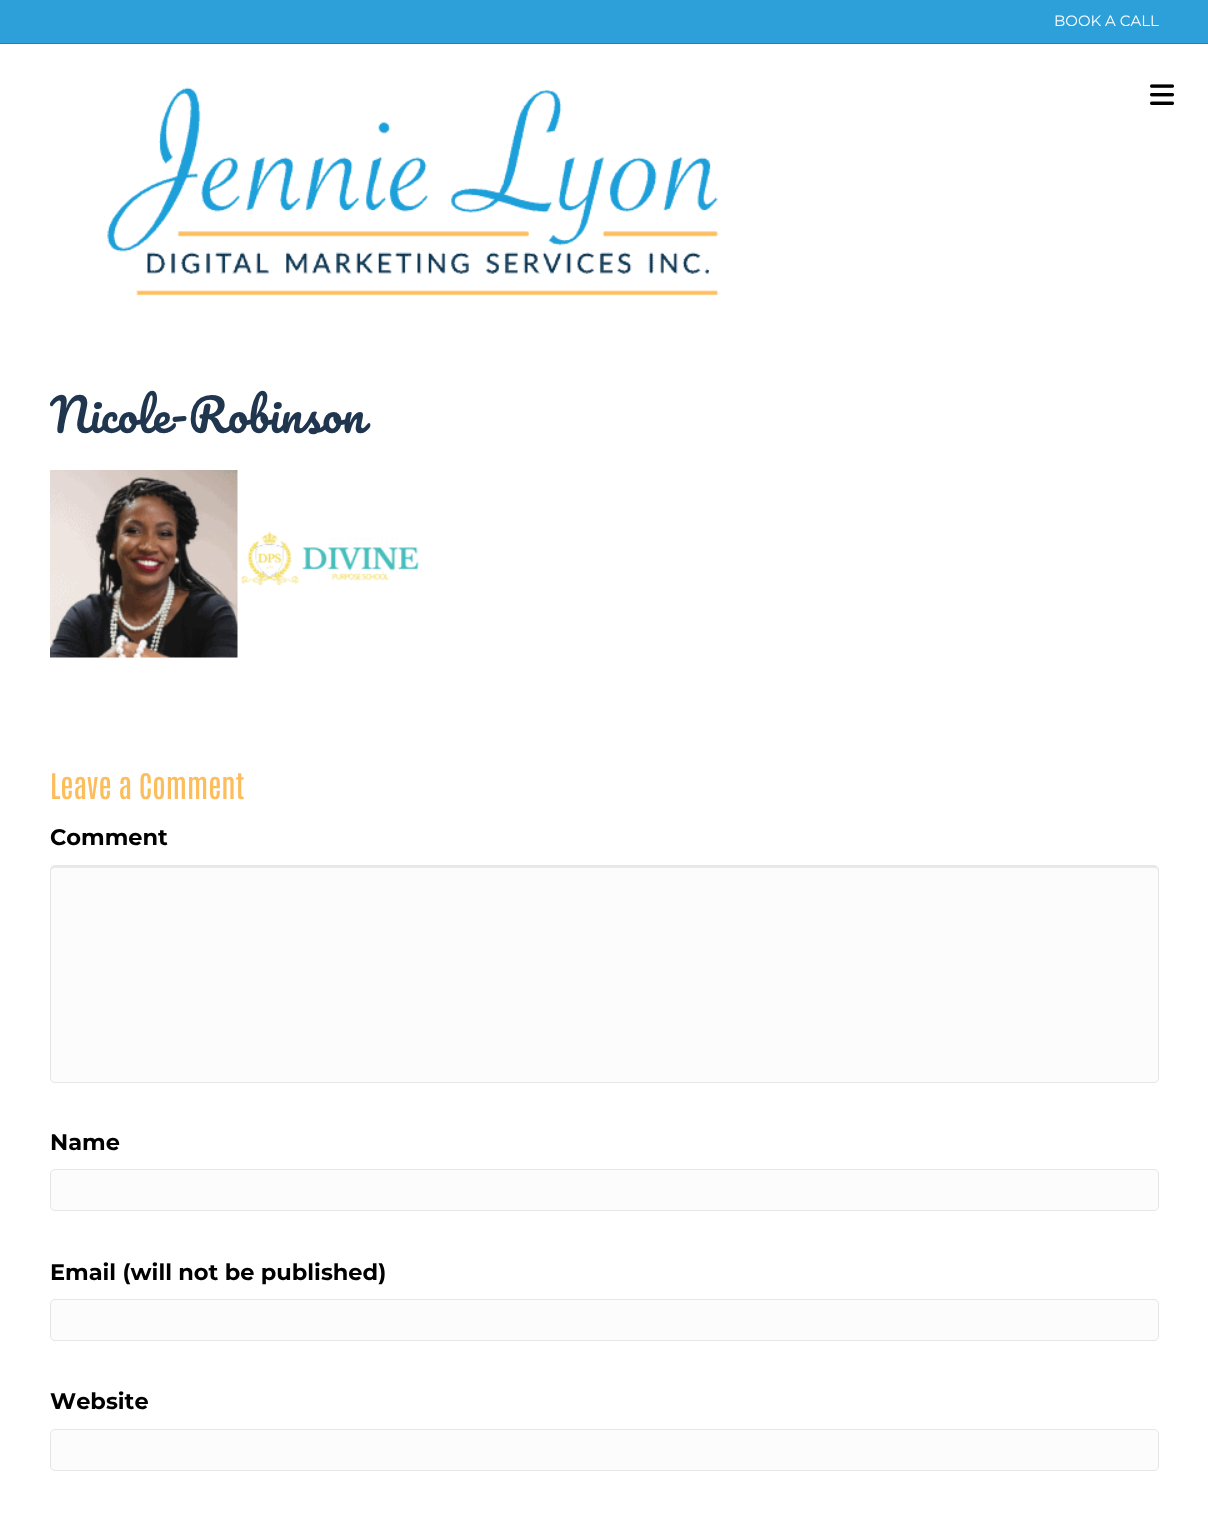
<svg xmlns="http://www.w3.org/2000/svg" xmlns:xlink="http://www.w3.org/1999/xlink" width="1208" height="1514" viewBox="0 0 1208 1514">
<style>*{font-kerning:none!important;font-variant-ligatures:none!important}</style>
<style>
.cls-1{font:15px Montserrat;fill:#ffffff}
.cls-2{font:45px Pacifico;fill:#20364f}
.cls-3{font:500 30px Antonio;fill:#fcbd5d}
.cls-4{font:bold 22.5px Montserrat;fill:#000000}
</style>
<rect width="100%" height="100%" fill="#2da0d9"/>
<rect fill="#2082b3" x="0" y="43" width="1208" height="1"/>
<rect fill="#ffffff" x="0" y="44" width="1208" height="1470"/>
<image xlink:href="image0.png" x="107" y="87" width="611" height="209"/>
<image xlink:href="image1.png" x="1150" y="84" width="24" height="21"/>
<image xlink:href="image2.png" x="50" y="470" width="369" height="188"/>
<rect fill="#fcfcfc" x="50" y="865" width="1109" height="218" rx="5"/>
<path fill="#e9e9e9" d="M55 868H1154C1156 868 1158 869 1158 871C1158 868 1157 866 1154 866H55C52 866 51 868 51 871C51 869 53 868 55 868Z"/>
<rect fill="none" stroke="#e6e6e6" x="50.5" y="865.5" width="1108" height="217" rx="4.5"/>
<rect fill="#fcfcfc" stroke="#e6e6e6" x="50.5" y="1169.5" width="1108" height="41" rx="4.5"/>
<rect fill="#fcfcfc" stroke="#e6e6e6" x="50.5" y="1299.5" width="1108" height="41" rx="4.5"/>
<rect fill="#fcfcfc" stroke="#e6e6e6" x="50.5" y="1429.5" width="1108" height="41" rx="4.5"/>
<text class="cls-1" x="1054" y="26">BOOK A CALL</text>
<text class="cls-2" x="50" y="433">Nicole-Robinson</text>
<text class="cls-3" x="50" y="799">Leave a Comment</text>
<text class="cls-4" x="50" y="845">Comment</text>
<text class="cls-4" x="50" y="1150">Name</text>
<text class="cls-4" x="50" y="1280">Email (will not be published)</text>
<text class="cls-4" x="50" y="1409">Website</text>
</svg>
